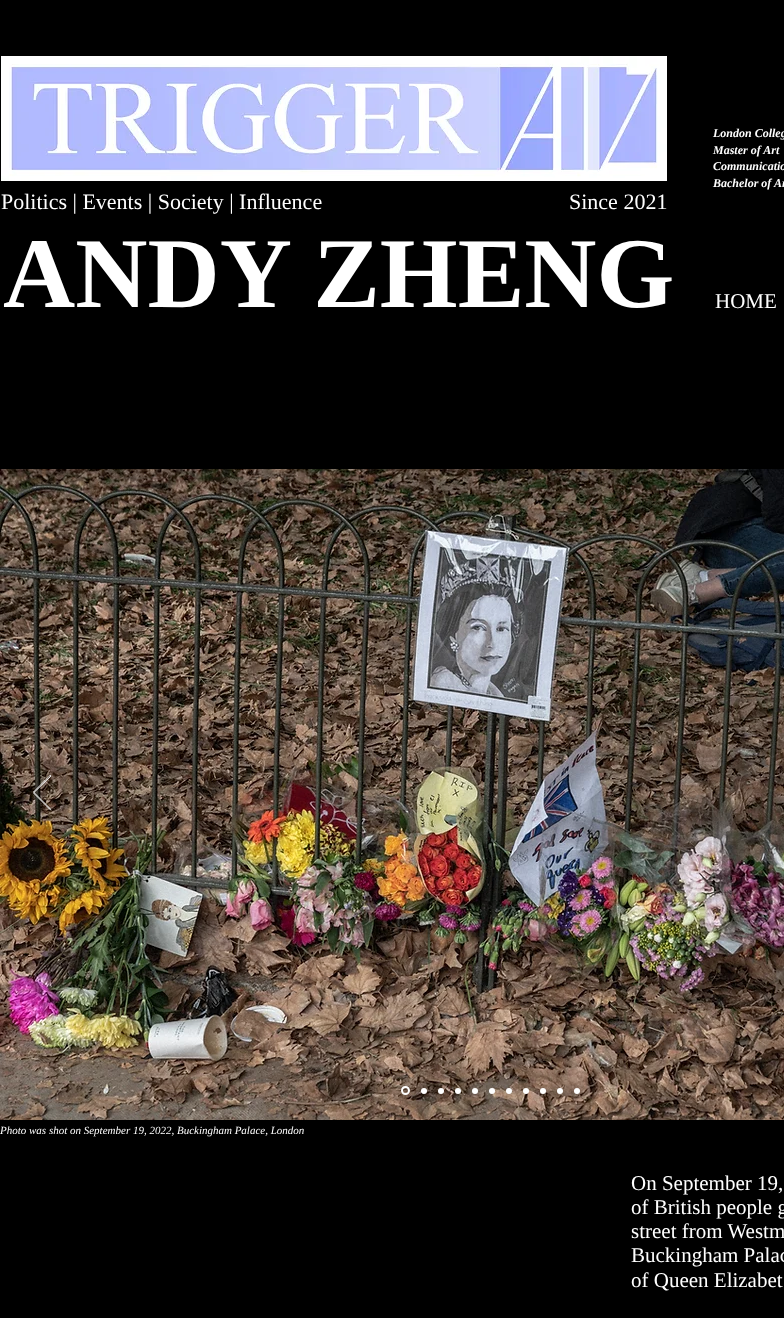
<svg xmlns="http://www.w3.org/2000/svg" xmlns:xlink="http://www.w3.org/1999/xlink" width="784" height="1318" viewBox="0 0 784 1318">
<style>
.cls-1{font:italic bold 12px Liberation Serif;fill:#ffffff}
.cls-2{font:22px Liberation Serif;fill:#ffffff}
.cls-3{font:bold 100px Liberation Serif;fill:#ffffff}
.cls-4{font:21px Liberation Serif;fill:#ffffff}
.cls-5{font:italic 11px Liberation Serif;fill:#ffffff}
</style>
<defs>
<clipPath id="clip1"><rect x="33" y="775" width="18" height="36"/></clipPath>
</defs>
<rect width="100%" height="100%" fill="#000000"/>
<image xlink:href="image0.png" x="1" y="56" width="666" height="125"/>
<image xlink:href="image1.png" x="0" y="469" width="784" height="651"/>
<g clip-path="url(#clip1)">
<path fill="none" stroke="#ffffff" stroke-width="0.9" d="M50.5 810L33 792.5L50.5 775L51 776L34 792.5L51 809.5Z"/>
</g>
<circle fill="none" stroke="#ffffff" stroke-width="2" cx="405.5" cy="1090.5" r="3.5"/>
<circle fill="#ffffff" cx="424" cy="1091" r="3"/>
<circle fill="#ffffff" cx="441" cy="1091" r="3"/>
<circle fill="#ffffff" cx="458" cy="1091" r="3"/>
<circle fill="#ffffff" cx="475" cy="1091" r="3"/>
<circle fill="#ffffff" cx="492" cy="1091" r="3"/>
<circle fill="#ffffff" cx="509" cy="1091" r="3"/>
<circle fill="#ffffff" cx="526" cy="1091" r="3"/>
<circle fill="#ffffff" cx="543" cy="1091" r="3"/>
<circle fill="#ffffff" cx="560" cy="1091" r="3"/>
<circle fill="#ffffff" cx="577" cy="1091" r="3"/>
<text class="cls-1"><tspan x="713" y="137">London Colleg</tspan><tspan x="713" y="154">Master of Art</tspan><tspan x="713" y="170">Communicatio</tspan><tspan x="713" y="187">Bachelor of Ar</tspan></text>
<text class="cls-2" x="1" y="209">Politics | Events | Society | Influence</text>
<text class="cls-2" x="569" y="209">Since 2021</text>
<text class="cls-3" x="3" y="307">ANDY ZHENG</text>
<text class="cls-4" x="715" y="308">HOME</text>
<text class="cls-5" x="0" y="1134">Photo was shot on September 19, 2022, Buckingham Palace, London</text>
<text class="cls-4"><tspan x="631" y="1190">On September 19,</tspan><tspan x="631" y="1214">of British people g</tspan><tspan x="631" y="1238">street from Westm</tspan><tspan x="631" y="1262">Buckingham Palac</tspan><tspan x="631" y="1287">of Queen Elizabet</tspan></text>
</svg>
